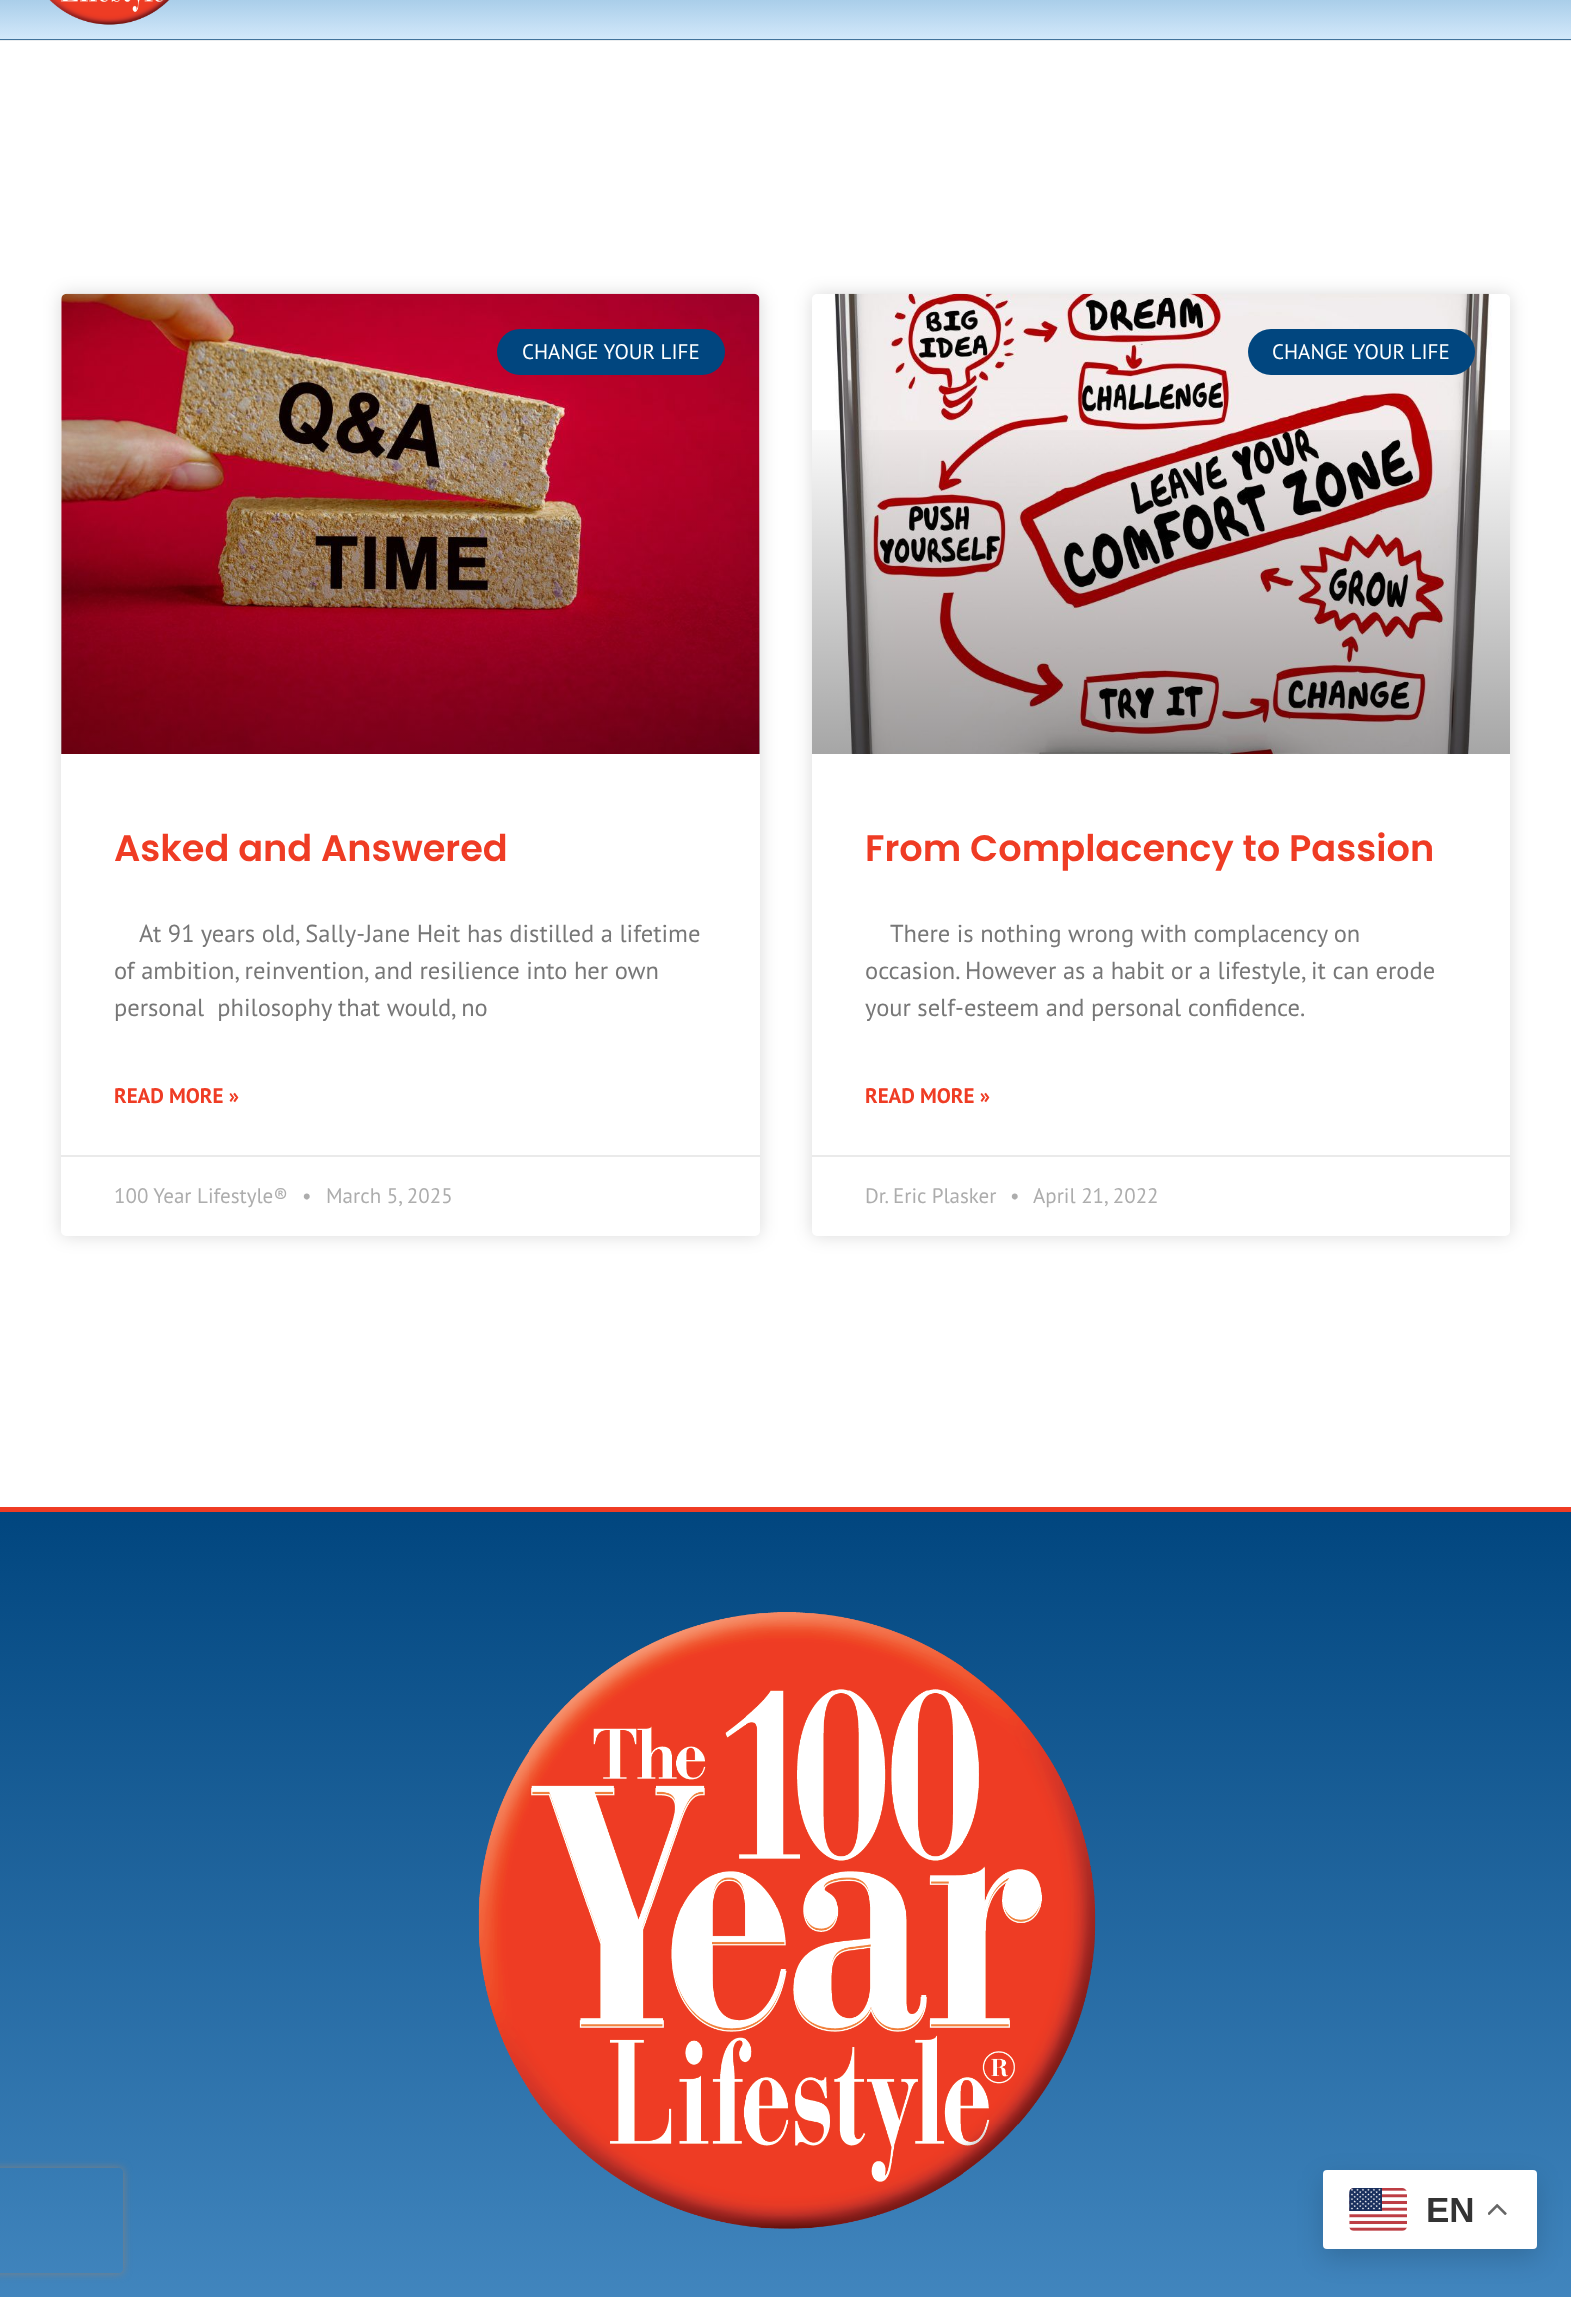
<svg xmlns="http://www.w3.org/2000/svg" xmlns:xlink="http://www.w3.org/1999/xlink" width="1571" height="2297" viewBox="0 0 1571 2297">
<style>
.cls-1{font:21px PT Sans;fill:#ffffff}
.cls-2{font:600 36.75px Poppins;fill:#ef3c24}
.cls-3{font:24.5px PT Sans;fill:#777777}
.cls-4{font:bold 21px PT Sans;fill:#ef3c24}
.cls-5{font:21px PT Sans;fill:#adadad}
.cls-6{font:bold 35px Liberation Sans;fill:#333333}
</style>
<defs>
<linearGradient id="g1" gradientUnits="userSpaceOnUse" x1="786" y1="-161" x2="786" y2="39"><stop offset="0" stop-color="#01467f"/><stop offset="1" stop-color="#73b7ef"/></linearGradient>
<linearGradient id="g2" gradientUnits="userSpaceOnUse" x1="786" y1="38" x2="786" y2="238"><stop offset="0" stop-color="#41729a"/><stop offset="1" stop-color="#8dbee5"/></linearGradient>
<linearGradient id="g3" gradientUnits="userSpaceOnUse" x1="786" y1="-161" x2="786" y2="39"><stop offset="0" stop-color="#0170b9" stop-opacity="0.68"/><stop offset="1" stop-color="#ffffff" stop-opacity="0.68"/></linearGradient>
<linearGradient id="g4" gradientUnits="userSpaceOnUse" x1="410" y1="754" x2="410" y2="294"><stop offset="0" stop-color="#000000" stop-opacity="0.35"/><stop offset="0.75" stop-color="#000000" stop-opacity="0"/></linearGradient>
<linearGradient id="g5" gradientUnits="userSpaceOnUse" x1="1161" y1="754" x2="1161" y2="294"><stop offset="0" stop-color="#000000" stop-opacity="0.35"/><stop offset="0.75" stop-color="#000000" stop-opacity="0"/></linearGradient>
<linearGradient id="g6" gradientUnits="userSpaceOnUse" x1="786" y1="1512" x2="786" y2="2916"><stop offset="0" stop-color="#01467f"/><stop offset="1" stop-color="#73b7ef"/></linearGradient>
<clipPath id="clip1"><path d="M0 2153H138V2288H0ZM-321 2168H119C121 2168 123 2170 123 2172V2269C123 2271 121 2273 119 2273H-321C-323 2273-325 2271-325 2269V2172C-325 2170-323 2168-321 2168Z" clip-rule="evenodd"/></clipPath>
</defs>
<rect width="100%" height="100%" fill="#ffffff"/>
<rect fill="#ebeef0" x="0" y="40" width="1571" height="1"/>
<rect fill="url(#g1)" x="0" y="0" width="1571" height="39"/>
<rect fill="url(#g2)" x="0" y="39" width="1571" height="1"/>
<rect fill="url(#g3)" x="0" y="0" width="1571" height="39"/>
<image xlink:href="image0.png" x="49" y="0" width="121" height="25"/>
<rect fill="#000000" fill-opacity="0.15" filter="blur(9px)" x="61" y="294" width="699" height="942" rx="5"/>
<rect fill="#ffffff" x="61" y="294" width="699" height="942" rx="5"/>
<image xlink:href="image1.png" x="61" y="293" width="699" height="461"/>
<rect fill="url(#g4)" x="61" y="430" width="699" height="324"/>
<rect fill="#01467f" x="497" y="329" width="228" height="46" rx="23"/>
<rect fill="#eaeaea" x="61" y="1155" width="699" height="2"/>
<rect fill="#000000" fill-opacity="0.15" filter="blur(9px)" x="812" y="294" width="698" height="942" rx="5"/>
<rect fill="#ffffff" x="812" y="294" width="698" height="942" rx="5"/>
<image xlink:href="image2.png" x="834" y="293" width="658" height="461"/>
<rect fill="url(#g5)" x="812" y="430" width="698" height="324"/>
<rect fill="#01467f" x="1248" y="329" width="227" height="46" rx="23"/>
<rect fill="#eaeaea" x="812" y="1155" width="698" height="2"/>
<rect fill="url(#g6)" x="0" y="1512" width="1571" height="785"/>
<rect fill="#ef3c24" x="0" y="1507" width="1571" height="5"/>
<g clip-path="url(#clip1)">
<rect fill="#808080" filter="blur(4.5px)" x="-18" y="2168" width="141" height="105" rx="4"/>
</g>
<image xlink:href="image3.png" x="478" y="1612" width="618" height="617"/>
<rect fill="#000000" fill-opacity="0.15" filter="blur(13px)" x="1323" y="2179" width="214" height="79" rx="4"/>
<rect fill="#ffffff" x="1323" y="2170" width="214" height="79" rx="4"/>
<image xlink:href="image4.png" x="1349" y="2188" width="58" height="43"/>
<image xlink:href="image5.png" x="1488" y="2203" width="19" height="12"/>
<text class="cls-1" x="522" y="359">CHANGE YOUR LIFE</text>
<text class="cls-2" x="114" y="861">Asked and Answered</text>
<text class="cls-3" x="139" y="942">At 91 years old, Sally-Jane Heit has distilled a lifetime</text>
<text class="cls-3" xml:space="preserve"><tspan x="114" y="979">of ambition, reinvention, and resilience into her own</tspan><tspan x="114" y="1016">personal  philosophy that would, no</tspan></text>
<text class="cls-4" x="114" y="1103">READ MORE »</text>
<text class="cls-5" x="114" y="1203">100 Year Lifestyle®</text>
<text class="cls-5" x="302" y="1203">•</text>
<text class="cls-5" x="326" y="1203">March 5, 2025</text>
<text class="cls-1" x="1272" y="359">CHANGE YOUR LIFE</text>
<text class="cls-2" x="865" y="861">From Complacency to Passion</text>
<text class="cls-3" x="890" y="942">There is nothing wrong with complacency on</text>
<text class="cls-3"><tspan x="865" y="979">occasion. However as a habit or a lifestyle, it can erode</tspan><tspan x="865" y="1016">your self-esteem and personal confidence.</tspan></text>
<text class="cls-4" x="865" y="1103">READ MORE »</text>
<text class="cls-5" x="865" y="1203">Dr. Eric Plasker</text>
<text class="cls-5" x="1010" y="1203">•</text>
<text class="cls-5" x="1033" y="1203">April 21, 2022</text>
<text class="cls-6" x="1426" y="2222">EN</text>
</svg>
